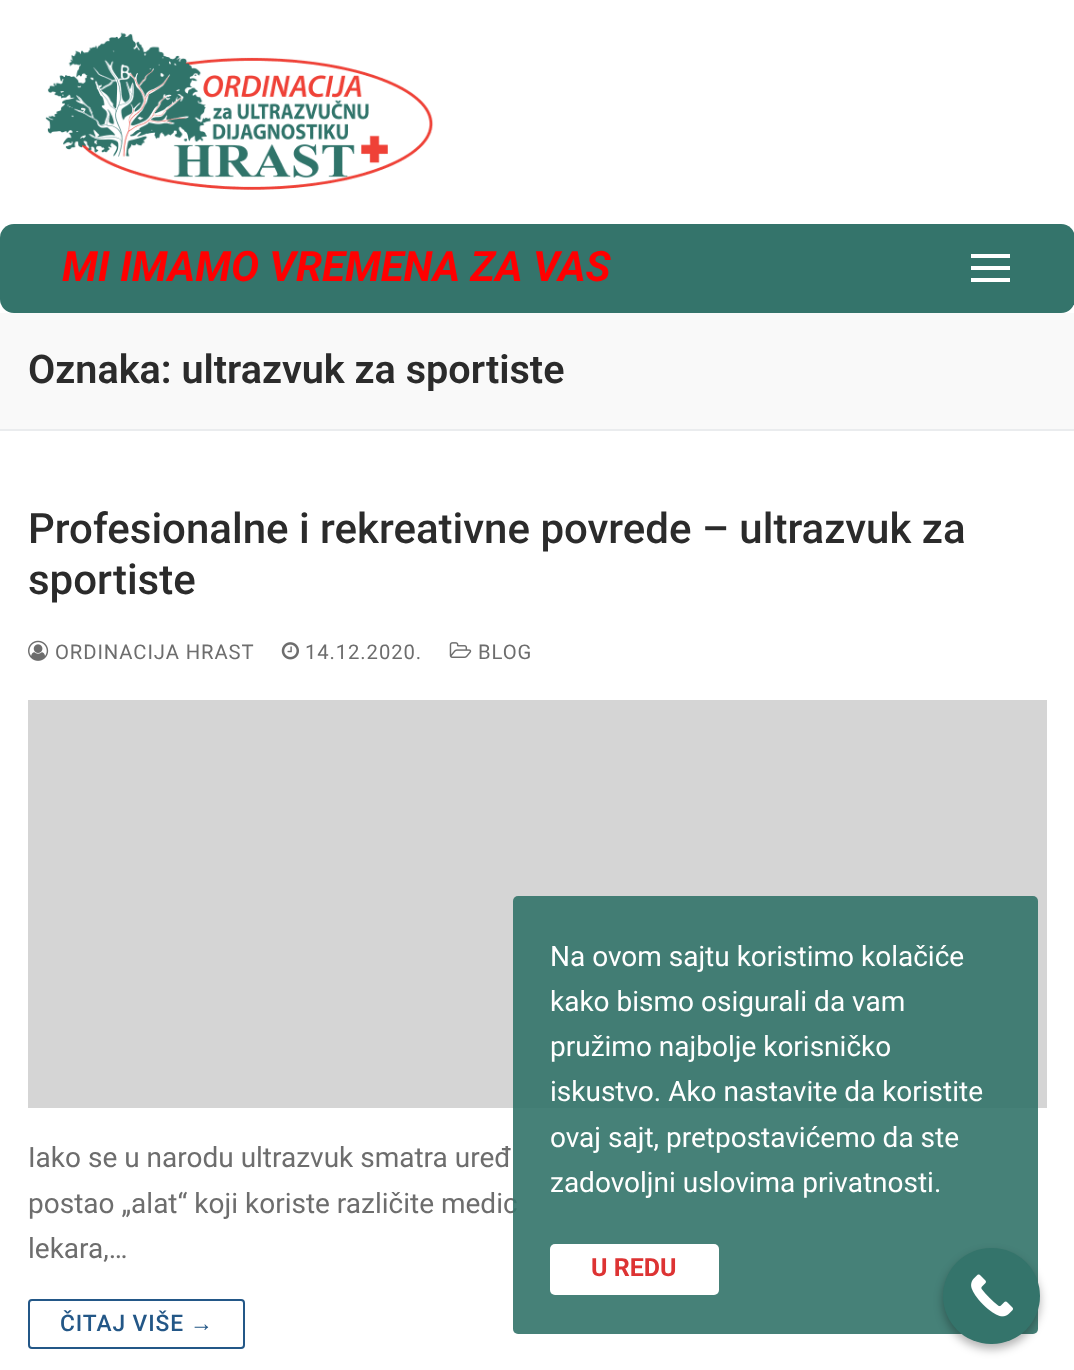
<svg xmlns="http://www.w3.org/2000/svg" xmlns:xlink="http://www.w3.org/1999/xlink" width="1074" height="1370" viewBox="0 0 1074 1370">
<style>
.cls-1{font:italic bold 42px Roboto;fill:#ff0000}
.cls-2{font:600 39.6px Roboto;fill:#2b2b2b}
.cls-3{font:500 42px Roboto;fill:#2b2b2b}
.cls-4{font:20.25px Roboto;letter-spacing:0.9px;fill:#6d6d6d}
.cls-5{font:28px Roboto;fill:#6d6d6d}
.cls-6{font:500 22.75px Roboto;letter-spacing:0.9px;fill:#235787}
.cls-7{font:22.75px Liberation Sans;letter-spacing:0.9px;fill:#235787}
.cls-8{font:28px Roboto;fill:#ffffff}
.cls-9{font:bold 25px Roboto;fill:#dd3333}
</style>
<rect width="100%" height="100%" fill="#ffffff"/>
<image xlink:href="image0.png" x="45" y="32" width="389" height="158"/>
<rect fill="#34746b" x="0" y="224" width="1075" height="89" rx="14"/>
<rect fill="#ffffff" x="971" y="266" width="39" height="4"/>
<rect fill="#ffffff" x="971" y="254" width="39" height="4"/>
<rect fill="#ffffff" x="971" y="278" width="39" height="4"/>
<rect fill="#f9f9f9" x="0" y="313" width="1074" height="116"/>
<rect fill="#eaecee" x="0" y="429" width="1074" height="2"/>
<image xlink:href="image1.png" x="28" y="640" width="21" height="21"/>
<image xlink:href="image2.png" x="281" y="642" width="18" height="18"/>
<image xlink:href="image3.png" x="449" y="642" width="23" height="16"/>
<rect fill="#d5d5d5" x="28" y="700" width="1019" height="408"/>
<rect fill="none" stroke="#235787" stroke-width="2" x="29" y="1300" width="215" height="48" rx="3"/>
<text class="cls-1" x="62" y="281">MI IMAMO VREMENA ZA VAS</text>
<text class="cls-2" x="28" y="383">Oznaka: ultrazvuk za sportiste</text>
<text class="cls-3"><tspan x="28" y="543">Profesionalne i rekreativne povrede – ultrazvuk za</tspan><tspan x="28" y="594">sportiste</tspan></text>
<text class="cls-4" x="55" y="659">ORDINACIJA HRAST</text>
<text class="cls-4" x="305" y="659">14.12.2020.</text>
<text class="cls-4" x="478" y="659">BLOG</text>
<text class="cls-5"><tspan x="28" y="1167">Iako se u narodu ultrazvuk smatra uređ</tspan><tspan x="28" y="1213">postao „alat“ koji koriste različite medic</tspan><tspan x="28" y="1258">lekara,…</tspan></text>
<text class="cls-6" x="60" y="1331">ČITAJ VIŠE</text>
<text class="cls-7" x="190" y="1331">→</text>
<rect fill="#34746b" fill-opacity="0.91" x="513" y="896" width="525" height="438" rx="5"/>
<text class="cls-8"><tspan x="550" y="966">Na ovom sajtu koristimo kolačiće</tspan><tspan x="550" y="1011">kako bismo osigurali da vam</tspan><tspan x="550" y="1056">pružimo najbolje korisničko</tspan><tspan x="550" y="1101">iskustvo. Ako nastavite da koristite</tspan><tspan x="550" y="1147">ovaj sajt, pretpostavićemo da ste</tspan><tspan x="550" y="1192">zadovoljni uslovima privatnosti.</tspan></text>
<rect fill="#ffffff" x="550" y="1244" width="169" height="51" rx="5"/>
<text class="cls-9" x="591" y="1276">U REDU</text>
<rect fill="#000000" fill-opacity="0.3" filter="blur(5px)" x="943" y="1253" width="97" height="96" rx="48"/>
<rect fill="#34746b" x="943" y="1248" width="97" height="96" rx="48"/>
<image xlink:href="image4.png" x="971" y="1274" width="42" height="43"/>
</svg>
